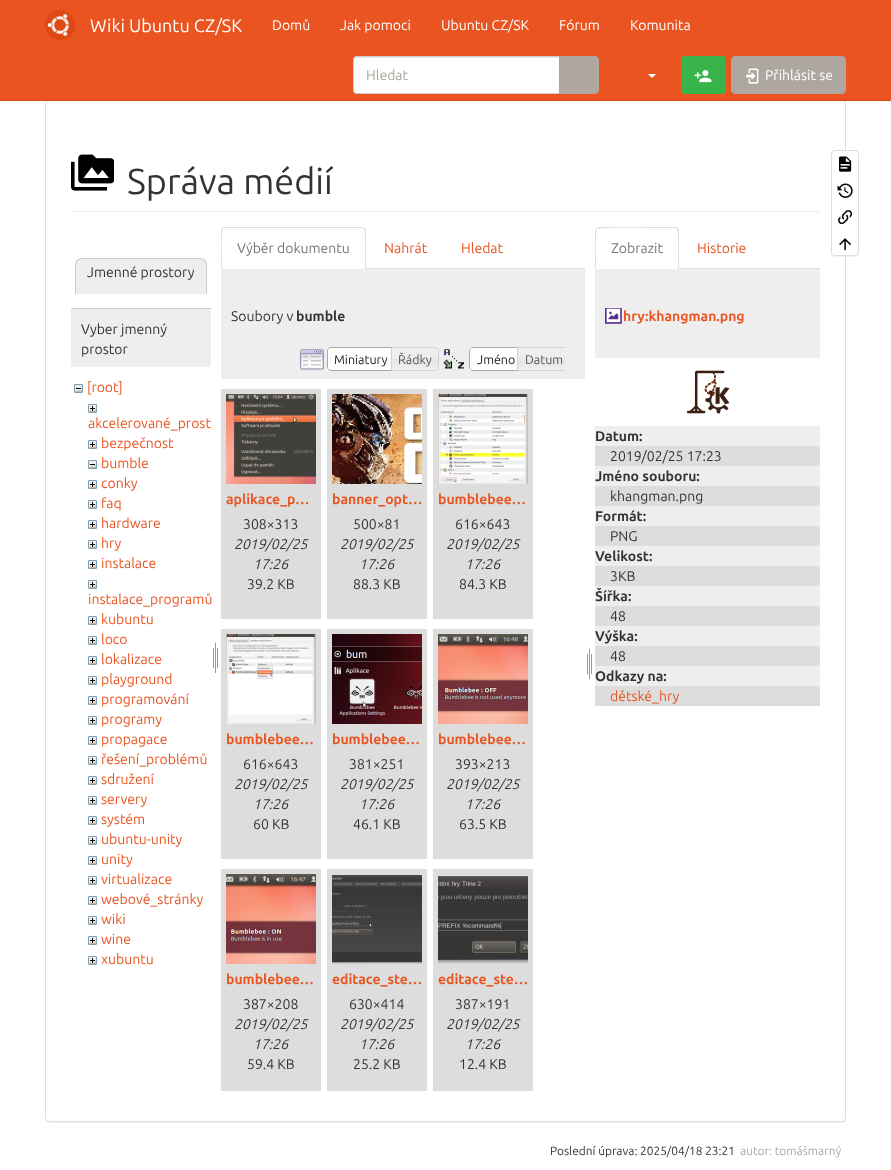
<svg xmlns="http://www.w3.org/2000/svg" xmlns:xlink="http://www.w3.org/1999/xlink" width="891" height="1170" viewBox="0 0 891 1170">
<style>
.cls-1{font:18px Ubuntu;fill:#ffffff}
.cls-2{font:14px Ubuntu;fill:#ffffff}
.cls-3{font:14px Ubuntu;fill:#aea79f}
.cls-4{font:36px Ubuntu;fill:#333333}
.cls-5{font:14px Ubuntu;fill:#333333}
.cls-6{font:14px Ubuntu;fill:#e95420}
.cls-7{font:14px Ubuntu;fill:#777777}
.cls-8{font:bold 14px Ubuntu;fill:#333333}
.cls-9{font:12.5px Ubuntu;fill:#212121}
.cls-10{font:12.5px Ubuntu;fill:#555555}
.cls-11{font:bold 14px Ubuntu;fill:#e95420}
.cls-12{font:italic 14px Ubuntu;fill:#333333}
.cls-13{font:11.9px Ubuntu;fill:#333333}
.cls-14{font:11.9px Ubuntu;fill:#aea79f}
</style>
<defs>
<clipPath id="clip1"><rect x="292" y="347" width="273" height="24"/></clipPath>
</defs>
<rect width="100%" height="100%" fill="#ffffff"/>
<rect fill="#000000" fill-opacity="0.05" filter="blur(0.5px)" x="45" y="101" width="801" height="1022" rx="4"/>
<rect fill="#e95420" x="0" y="0" width="891" height="100"/>
<rect fill="#ffffff" stroke="#dddddd" x="45.5" y="100.5" width="800" height="1021" rx="3.5"/>
<rect fill="#d34615" x="0" y="100" width="891" height="1"/>
<image xlink:href="image0.png" x="45" y="10" width="30" height="30"/>
<path fill="#ffffff" d="M357 56H560V94H357C355 94 353 92 353 90V60C353 58 355 56 357 56Z"/>
<path fill="#ececec" d="M357 58H559V57H356C354 58 354 59 354 61C354 59 355 58 357 58Z"/>
<path fill="none" stroke="#cccccc" d="M357 56.5H559.5V93.5H357C355 93.5 353.5 92 353.5 90V60C353.5 58 355 56.5 357 56.5Z"/>
<path fill="#aea79f" stroke="#aea79f" d="M559.5 56.5H595C597 56.5 598.5 58 598.5 60V90C598.5 92 597 93.5 595 93.5H559.5Z"/>
<path fill="#ffffff" d="M648 74H656L652 78Z"/>
<rect fill="#38b44a" stroke="#38b44a" x="681.5" y="56.5" width="44" height="37" rx="3.5"/>
<image xlink:href="image1.png" x="694" y="70" width="18" height="13"/>
<rect fill="#aea79f" stroke="#aea79f" x="731.5" y="56.5" width="114" height="37" rx="3.5"/>
<image xlink:href="image2.png" x="746" y="68" width="13" height="16"/>
<rect fill="#eeeeee" x="71" y="211" width="749" height="1"/>
<image xlink:href="image3.png" x="71" y="154" width="43" height="37"/>
<path fill="#eeeeee" d="M82 258H200C204 258 207 261 207 265V294H75V265C75 261 78 258 82 258Z"/>
<path fill="#cccccc" d="M82 258C80 258 78 259 77 260L78 261L81 259H201L204 261L205 260C204 259 202 258 200 258Z"/>
<path fill="#cccccc" d="M207 294V265C207 263 206 261 205 260L204 261C205 262 206 263.5 206 265V293Z"/>
<path fill="#eeeeee" d="M207 294L206 293H76L75 294Z"/>
<path fill="#cccccc" d="M75 294L76 293V265C76 263.5 77 262 78 261L77 260C76 261 75 263 75 265Z"/>
<rect fill="#eeeeee" x="71" y="309" width="140" height="58"/>
<rect fill="#cccccc" x="71" y="308" width="140" height="1"/>
<image xlink:href="image4.png" x="74" y="384" width="9" height="9"/>
<image xlink:href="image5.png" x="88" y="404" width="9" height="9"/>
<image xlink:href="image5.png" x="88" y="440" width="9" height="9"/>
<image xlink:href="image4.png" x="88" y="460" width="9" height="9"/>
<image xlink:href="image5.png" x="88" y="480" width="9" height="9"/>
<image xlink:href="image5.png" x="88" y="500" width="9" height="9"/>
<image xlink:href="image5.png" x="88" y="520" width="9" height="9"/>
<image xlink:href="image5.png" x="88" y="540" width="9" height="9"/>
<image xlink:href="image5.png" x="88" y="560" width="9" height="9"/>
<image xlink:href="image5.png" x="88" y="580" width="9" height="9"/>
<image xlink:href="image5.png" x="88" y="616" width="9" height="9"/>
<image xlink:href="image5.png" x="88" y="636" width="9" height="9"/>
<image xlink:href="image5.png" x="88" y="656" width="9" height="9"/>
<image xlink:href="image5.png" x="88" y="676" width="9" height="9"/>
<image xlink:href="image5.png" x="88" y="696" width="9" height="9"/>
<image xlink:href="image5.png" x="88" y="716" width="9" height="9"/>
<image xlink:href="image5.png" x="88" y="736" width="9" height="9"/>
<image xlink:href="image5.png" x="88" y="756" width="9" height="9"/>
<image xlink:href="image5.png" x="88" y="776" width="9" height="9"/>
<image xlink:href="image5.png" x="88" y="796" width="9" height="9"/>
<image xlink:href="image5.png" x="88" y="816" width="9" height="9"/>
<image xlink:href="image5.png" x="88" y="836" width="9" height="9"/>
<image xlink:href="image5.png" x="88" y="856" width="9" height="9"/>
<image xlink:href="image5.png" x="88" y="876" width="9" height="9"/>
<image xlink:href="image5.png" x="88" y="896" width="9" height="9"/>
<image xlink:href="image5.png" x="88" y="916" width="9" height="9"/>
<image xlink:href="image5.png" x="88" y="936" width="9" height="9"/>
<image xlink:href="image5.png" x="88" y="956" width="9" height="9"/>
<image xlink:href="image6.png" x="213" y="642" width="5" height="31"/>
<rect fill="#dddddd" x="366" y="268" width="219" height="1"/>
<path fill="#dddddd" d="M225 227L222 228L223 229L225 228H362L364 229L365 228L362 227Z"/>
<path fill="#dddddd" d="M366 269V231C366 230 366 229 365 228L364 229C366 231 365 263 365 268Z"/>
<path fill="#dddddd" d="M221 269L222 268C222 263 221 231 223 229L222 228L221 231Z"/>
<rect fill="#eeeeee" x="221" y="269" width="364" height="110"/>
<image xlink:href="image7.png" x="300" y="349" width="24" height="22"/>
<rect fill="#ffffff" x="327" y="347" width="64" height="24"/>
<path fill="none" stroke="#aaaaaa" d="M331 347.5H395.5V370.5H331C329 370.5 327.5 369 327.5 367V351C327.5 349 329 347.5 331 347.5Z"/>
<image xlink:href="image8.png" x="392" y="347" width="47" height="24"/>
<path fill="none" stroke="#d3d3d3" d="M391.5 347.5H435C437 347.5 438.5 349 438.5 351V367C438.5 369 437 370.5 435 370.5H391.5Z"/>
<image xlink:href="image9.png" x="443" y="349" width="21" height="20"/>
<rect fill="#ffffff" x="469" y="347" width="48" height="24"/>
<path fill="none" stroke="#aaaaaa" d="M473 347.5H521.5V370.5H473C471 370.5 469.5 369 469.5 367V351C469.5 349 471 347.5 473 347.5Z"/>
<image xlink:href="image10.png" x="518" y="348" width="47" height="22"/>
<g clip-path="url(#clip1)">
<path fill="none" stroke="#d3d3d3" d="M517.5 347.5H566C568 347.5 569.5 349 569.5 351V367C569.5 369 568 370.5 566 370.5H517.5Z"/>
</g>
<rect fill="#dddddd" x="221" y="389" width="100" height="230"/>
<image xlink:href="image11.png" x="226" y="394" width="90" height="90"/>
<rect fill="#dddddd" x="327" y="389" width="100" height="230"/>
<image xlink:href="image12.png" x="332" y="394" width="90" height="90"/>
<rect fill="#dddddd" x="433" y="389" width="100" height="230"/>
<image xlink:href="image13.png" x="438" y="394" width="90" height="90"/>
<rect fill="#dddddd" x="221" y="629" width="100" height="230"/>
<image xlink:href="image14.png" x="226" y="634" width="90" height="90"/>
<rect fill="#dddddd" x="327" y="629" width="100" height="230"/>
<image xlink:href="image15.png" x="332" y="634" width="90" height="90"/>
<rect fill="#dddddd" x="433" y="629" width="100" height="230"/>
<image xlink:href="image16.png" x="438" y="634" width="90" height="90"/>
<rect fill="#dddddd" x="221" y="869" width="100" height="222"/>
<image xlink:href="image17.png" x="226" y="874" width="90" height="90"/>
<rect fill="#dddddd" x="327" y="869" width="100" height="222"/>
<image xlink:href="image18.png" x="332" y="875" width="90" height="89"/>
<rect fill="#dddddd" x="433" y="869" width="100" height="222"/>
<image xlink:href="image19.png" x="438" y="876" width="90" height="88"/>
<image xlink:href="image6.png" x="587" y="648" width="5" height="31"/>
<rect fill="#dddddd" x="679" y="268" width="141" height="1"/>
<path fill="#dddddd" d="M599 227L596 228L597 229C599 227 655 228 662 228H675L677 229L678 228L675 227Z"/>
<path fill="#dddddd" d="M679 269V231C679 230 678 229 678 228L677 229C679 231 678 263 678 268Z"/>
<path fill="#dddddd" d="M595 269L596 268C596 263 595 231 597 229L596 228L595 231Z"/>
<rect fill="#eeeeee" x="595" y="269" width="225" height="89"/>
<image xlink:href="image20.png" x="605" y="308" width="17" height="16"/>
<image xlink:href="image21.png" x="686" y="370" width="44" height="44"/>
<rect fill="#eeeeee" x="595" y="426" width="225" height="20"/>
<rect fill="#dddddd" x="595" y="446" width="225" height="20"/>
<rect fill="#eeeeee" x="595" y="466" width="225" height="20"/>
<rect fill="#dddddd" x="595" y="486" width="225" height="20"/>
<rect fill="#eeeeee" x="595" y="506" width="225" height="20"/>
<rect fill="#dddddd" x="595" y="526" width="225" height="20"/>
<rect fill="#eeeeee" x="595" y="546" width="225" height="20"/>
<rect fill="#dddddd" x="595" y="566" width="225" height="20"/>
<rect fill="#eeeeee" x="595" y="586" width="225" height="20"/>
<rect fill="#dddddd" x="595" y="606" width="225" height="20"/>
<rect fill="#eeeeee" x="595" y="626" width="225" height="20"/>
<rect fill="#dddddd" x="595" y="646" width="225" height="20"/>
<rect fill="#eeeeee" x="595" y="666" width="225" height="20"/>
<rect fill="#dddddd" x="595" y="686" width="225" height="20"/>
<rect fill="#000000" fill-opacity="0.05" filter="blur(0.5px)" x="831" y="151" width="28" height="106" rx="4"/>
<rect fill="#ffffff" stroke="#dddddd" x="831.5" y="150.5" width="27" height="105" rx="3.5"/>
<image xlink:href="image22.png" x="839" y="156" width="13" height="16"/>
<image xlink:href="image23.png" x="837" y="183" width="16" height="15"/>
<image xlink:href="image24.png" x="838" y="210" width="15" height="15"/>
<image xlink:href="image25.png" x="839" y="238" width="12" height="13"/>
<text class="cls-1" x="90" y="32">Wiki Ubuntu CZ/SK</text>
<text class="cls-2" x="272" y="30">Domů</text>
<text class="cls-2" x="340" y="30">Jak pomoci</text>
<text class="cls-2" x="441" y="30">Ubuntu CZ/SK</text>
<text class="cls-2" x="559" y="30">Fórum</text>
<text class="cls-2" x="630" y="30">Komunita</text>
<text class="cls-3" x="366" y="80">Hledat</text>
<text class="cls-2" x="765" y="80">Přihlásit se</text>
<text class="cls-4" x="127" y="194">Správa médií</text>
<text class="cls-5" x="87" y="277">Jmenné prostory</text>
<text class="cls-5"><tspan x="81" y="334">Vyber jmenný</tspan><tspan x="81" y="354">prostor</tspan></text>
<text class="cls-6" x="87" y="392">[root]</text>
<text class="cls-6" x="88" y="428">akcelerované_prost</text>
<text class="cls-6"><tspan x="101" y="448">bezpečnost</tspan><tspan x="101" y="468">bumble</tspan><tspan x="101" y="488">conky</tspan><tspan x="101" y="508">faq</tspan><tspan x="101" y="528">hardware</tspan><tspan x="101" y="548">hry</tspan><tspan x="101" y="568">instalace</tspan></text>
<text class="cls-6" x="88" y="604">instalace_programů</text>
<text class="cls-6"><tspan x="101" y="624">kubuntu</tspan><tspan x="101" y="644">loco</tspan><tspan x="101" y="664">lokalizace</tspan><tspan x="101" y="684">playground</tspan><tspan x="101" y="704">programování</tspan><tspan x="101" y="724">programy</tspan><tspan x="101" y="744">propagace</tspan><tspan x="101" y="764">řešení_problémů</tspan><tspan x="101" y="784">sdružení</tspan><tspan x="101" y="804">servery</tspan><tspan x="101" y="824">systém</tspan><tspan x="101" y="844">ubuntu-unity</tspan><tspan x="101" y="864">unity</tspan><tspan x="101" y="884">virtualizace</tspan><tspan x="101" y="904">webové_stránky</tspan><tspan x="101" y="924">wiki</tspan><tspan x="101" y="944">wine</tspan><tspan x="101" y="964">xubuntu</tspan></text>
<text class="cls-7" x="237" y="253">Výběr dokumentu</text>
<text class="cls-6" x="384" y="253">Nahrát</text>
<text class="cls-6" x="461" y="253">Hledat</text>
<text class="cls-5" x="231" y="321">Soubory v</text>
<text class="cls-8" x="296" y="321">bumble</text>
<text class="cls-9" x="334" y="364">Miniatury</text>
<text class="cls-10" x="398" y="364">Řádky</text>
<text class="cls-9" x="477" y="364">Jméno</text>
<text class="cls-10" x="525" y="364">Datum</text>
<text class="cls-11" x="226" y="504">aplikace_p…</text>
<text class="cls-5" x="243" y="529">308×313</text>
<text class="cls-12" x="234" y="549">2019/02/25</text>
<text class="cls-12" x="253" y="569">17:26</text>
<text class="cls-5" x="247" y="589">39.2 KB</text>
<text class="cls-11" x="332" y="504">banner_opt…</text>
<text class="cls-5" x="353" y="529">500×81</text>
<text class="cls-12" x="340" y="549">2019/02/25</text>
<text class="cls-12" x="359" y="569">17:26</text>
<text class="cls-5" x="353" y="589">88.3 KB</text>
<text class="cls-11" x="438" y="504">bumblebee…</text>
<text class="cls-5" x="455" y="529">616×643</text>
<text class="cls-12" x="446" y="549">2019/02/25</text>
<text class="cls-12" x="465" y="569">17:26</text>
<text class="cls-5" x="459" y="589">84.3 KB</text>
<text class="cls-11" x="226" y="744">bumblebee…</text>
<text class="cls-5" x="243" y="769">616×643</text>
<text class="cls-12" x="234" y="789">2019/02/25</text>
<text class="cls-12" x="253" y="809">17:26</text>
<text class="cls-5" x="253" y="829">60 KB</text>
<text class="cls-11" x="332" y="744">bumblebee…</text>
<text class="cls-5" x="349" y="769">381×251</text>
<text class="cls-12" x="340" y="789">2019/02/25</text>
<text class="cls-12" x="359" y="809">17:26</text>
<text class="cls-5" x="353" y="829">46.1 KB</text>
<text class="cls-11" x="438" y="744">bumblebee…</text>
<text class="cls-5" x="455" y="769">393×213</text>
<text class="cls-12" x="446" y="789">2019/02/25</text>
<text class="cls-12" x="465" y="809">17:26</text>
<text class="cls-5" x="459" y="829">63.5 KB</text>
<text class="cls-11" x="226" y="984">bumblebee…</text>
<text class="cls-5" x="243" y="1009">387×208</text>
<text class="cls-12" x="234" y="1029">2019/02/25</text>
<text class="cls-12" x="253" y="1049">17:26</text>
<text class="cls-5" x="247" y="1069">59.4 KB</text>
<text class="cls-11" x="332" y="984">editace_ste…</text>
<text class="cls-5" x="349" y="1009">630×414</text>
<text class="cls-12" x="340" y="1029">2019/02/25</text>
<text class="cls-12" x="359" y="1049">17:26</text>
<text class="cls-5" x="353" y="1069">25.2 KB</text>
<text class="cls-11" x="438" y="984">editace_ste…</text>
<text class="cls-5" x="455" y="1009">387×191</text>
<text class="cls-12" x="446" y="1029">2019/02/25</text>
<text class="cls-12" x="465" y="1049">17:26</text>
<text class="cls-5" x="459" y="1069">12.4 KB</text>
<text class="cls-7" x="611" y="253">Zobrazit</text>
<text class="cls-6" x="697" y="253">Historie</text>
<text class="cls-11" x="623" y="321">hry:khangman.png</text>
<text class="cls-8" x="595" y="441">Datum:</text>
<text class="cls-5" x="610" y="461">2019/02/25 17:23</text>
<text class="cls-8" x="595" y="481">Jméno souboru:</text>
<text class="cls-5" x="610" y="501">khangman.png</text>
<text class="cls-8" x="595" y="521">Formát:</text>
<text class="cls-5" x="610" y="541">PNG</text>
<text class="cls-8" x="595" y="561">Velikost:</text>
<text class="cls-5" x="610" y="581">3KB</text>
<text class="cls-8" x="595" y="601">Šířka:</text>
<text class="cls-5" x="610" y="621">48</text>
<text class="cls-8" x="595" y="641">Výška:</text>
<text class="cls-5" x="610" y="661">48</text>
<text class="cls-8" x="595" y="681">Odkazy na:</text>
<text class="cls-6" x="610" y="701">dětské_hry</text>
<text class="cls-13" x="550" y="1155">Poslední úprava: 2025/04/18 23:21</text>
<text class="cls-14" x="740" y="1155">autor: tomášmarný</text>
</svg>
